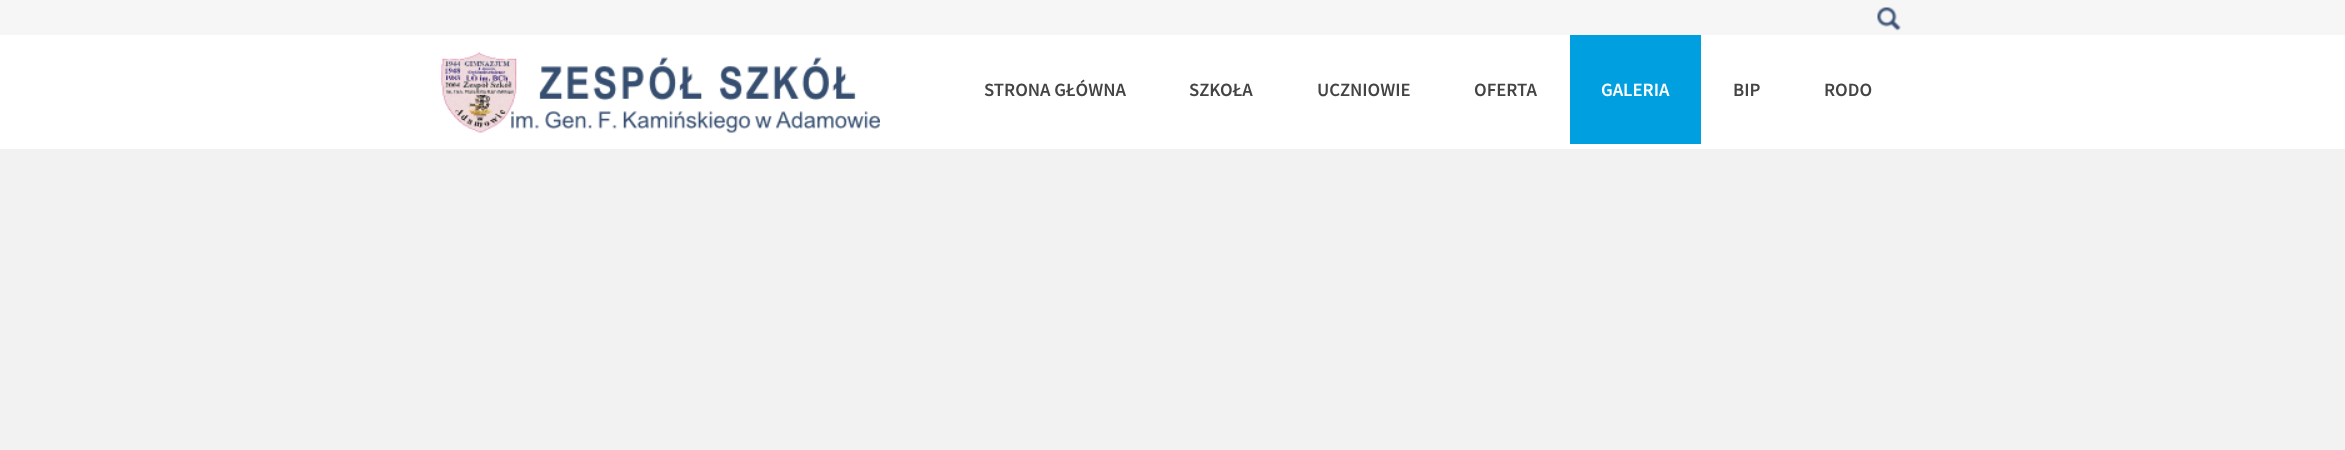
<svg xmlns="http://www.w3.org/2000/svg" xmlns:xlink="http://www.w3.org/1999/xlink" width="2345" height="450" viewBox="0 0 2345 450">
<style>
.cls-1{font:600 18.75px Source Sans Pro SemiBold;fill:#444444}
.cls-2{font:600 18.75px Source Sans Pro SemiBold;fill:#ffffff}
</style>
<rect width="100%" height="100%" fill="#f2f2f2"/>
<rect fill="#f6f6f6" x="0" y="0" width="2345" height="35"/>
<image xlink:href="image0.png" x="1877" y="7" width="24" height="24"/>
<rect fill="#ffffff" x="0" y="35" width="2345" height="114"/>
<image xlink:href="image1.png" x="441" y="52" width="439" height="81"/>
<rect fill="#009fdf" x="1570" y="35" width="131" height="109"/>
<text class="cls-1" x="984" y="96">STRONA GŁÓWNA</text>
<text class="cls-1" x="1189" y="96">SZKOŁA</text>
<text class="cls-1" x="1317" y="96">UCZNIOWIE</text>
<text class="cls-1" x="1474" y="96">OFERTA</text>
<text class="cls-2" x="1601" y="96">GALERIA</text>
<text class="cls-1" x="1733" y="96">BIP</text>
<text class="cls-1" x="1824" y="96">RODO</text>
</svg>
